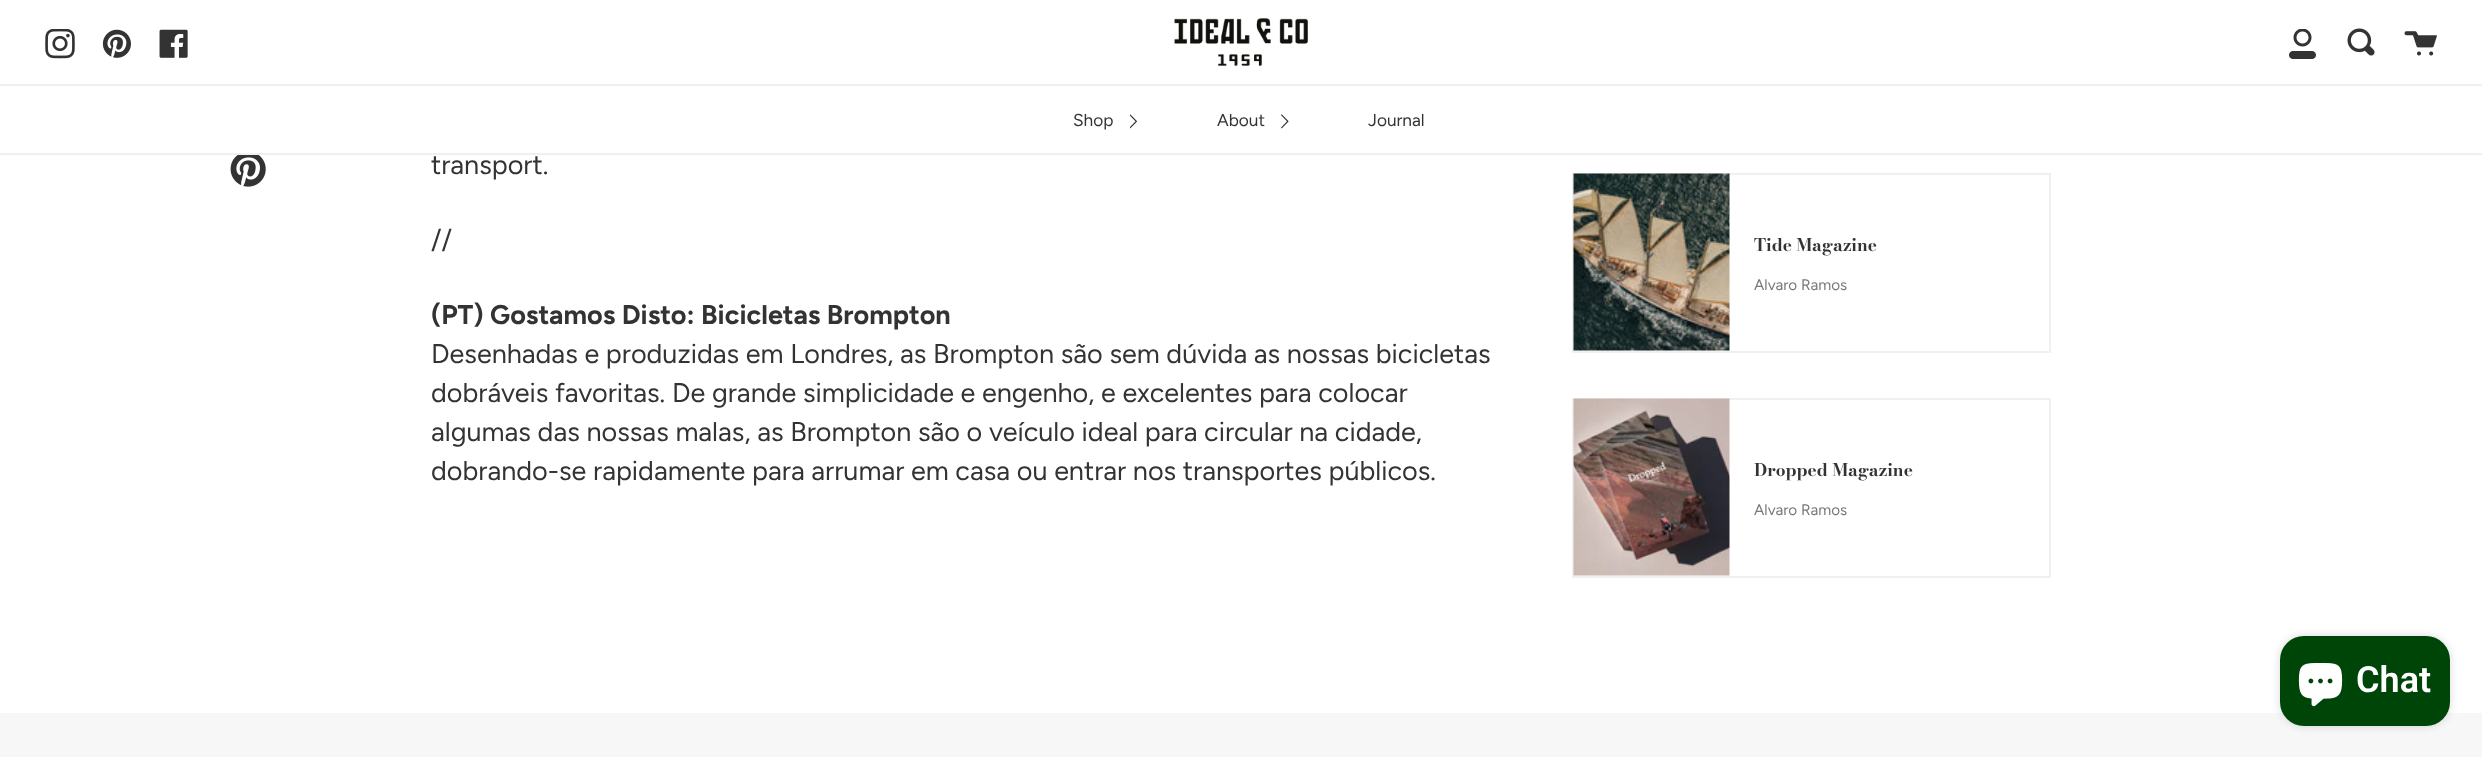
<svg xmlns="http://www.w3.org/2000/svg" xmlns:xlink="http://www.w3.org/1999/xlink" width="2482" height="757" viewBox="0 0 2482 757">
<style>
.cls-1{font:17.25px Figtree;fill:#333333}
.cls-2{font:27px Figtree;fill:#333333}
.cls-3{font:bold 27px Figtree;fill:#333333}
.cls-4{font:bold 17.25px Bodoni Moda;fill:#333333}
.cls-5{font:15.25px Figtree;fill:#787878}
.cls-6{font:600 36px Roboto;fill:#ffffff}
</style>
<rect width="100%" height="100%" fill="#ffffff"/>
<image xlink:href="image0.png" x="45" y="29" width="30" height="30"/>
<image xlink:href="image1.png" x="102" y="29" width="29" height="29"/>
<image xlink:href="image2.png" x="159" y="29" width="29" height="29"/>
<image xlink:href="image3.png" x="1174" y="18" width="134" height="48"/>
<image xlink:href="image4.png" x="2289" y="29" width="27" height="30"/>
<image xlink:href="image5.png" x="2347" y="28" width="28" height="28"/>
<image xlink:href="image6.png" x="2404" y="31" width="33" height="25"/>
<rect fill="#f0f0f0" x="0" y="84" width="2482" height="2"/>
<rect fill="#f0f0f0" x="0" y="153" width="2482" height="2"/>
<image xlink:href="image7.png" x="1130" y="114" width="7" height="15"/>
<image xlink:href="image8.png" x="1281" y="114" width="8" height="15"/>
<image xlink:href="image9.png" x="230" y="155" width="36" height="32"/>
<rect fill="none" stroke="#f0f0f0" stroke-width="2" x="1573" y="174" width="477" height="178"/>
<image xlink:href="image10.png" x="1573" y="173" width="157" height="178"/>
<rect fill="none" stroke="#f0f0f0" stroke-width="2" x="1573" y="399" width="477" height="178"/>
<image xlink:href="image11.png" x="1573" y="398" width="157" height="178"/>
<rect fill="#f7f7f7" x="0" y="713" width="2482" height="44"/>
<rect fill="#000000" fill-opacity="0.15" filter="blur(4px)" x="2280" y="636" width="170" height="90" rx="24"/>
<rect fill="#004508" x="2280" y="636" width="170" height="90" rx="24"/>
<image xlink:href="image12.png" x="2298" y="663" width="45" height="44"/>
<text class="cls-1" x="1073" y="126">Shop</text>
<text class="cls-1" x="1217" y="126">About</text>
<text class="cls-1" x="1368" y="126">Journal</text>
<text class="cls-2" x="431" y="174">transport.</text>
<text class="cls-2" x="431" y="249">//</text>
<text class="cls-3" x="431" y="324">(PT) Gostamos Disto: Bicicletas Brompton</text>
<text class="cls-2"><tspan x="431" y="363">Desenhadas e produzidas em Londres, as Brompton são sem dúvida as nossas bicicletas</tspan><tspan x="431" y="402">dobráveis favoritas. De grande simplicidade e engenho, e excelentes para colocar</tspan><tspan x="431" y="441">algumas das nossas malas, as Brompton são o veículo ideal para circular na cidade,</tspan><tspan x="431" y="480">dobrando-se rapidamente para arrumar em casa ou entrar nos transportes públicos.</tspan></text>
<text class="cls-4" x="1754" y="251">Tide Magazine</text>
<text class="cls-5" x="1754" y="290">Alvaro Ramos</text>
<text class="cls-4" x="1754" y="476">Dropped Magazine</text>
<text class="cls-5" x="1754" y="515">Alvaro Ramos</text>
<text class="cls-6" x="2356" y="692">Chat</text>
</svg>
